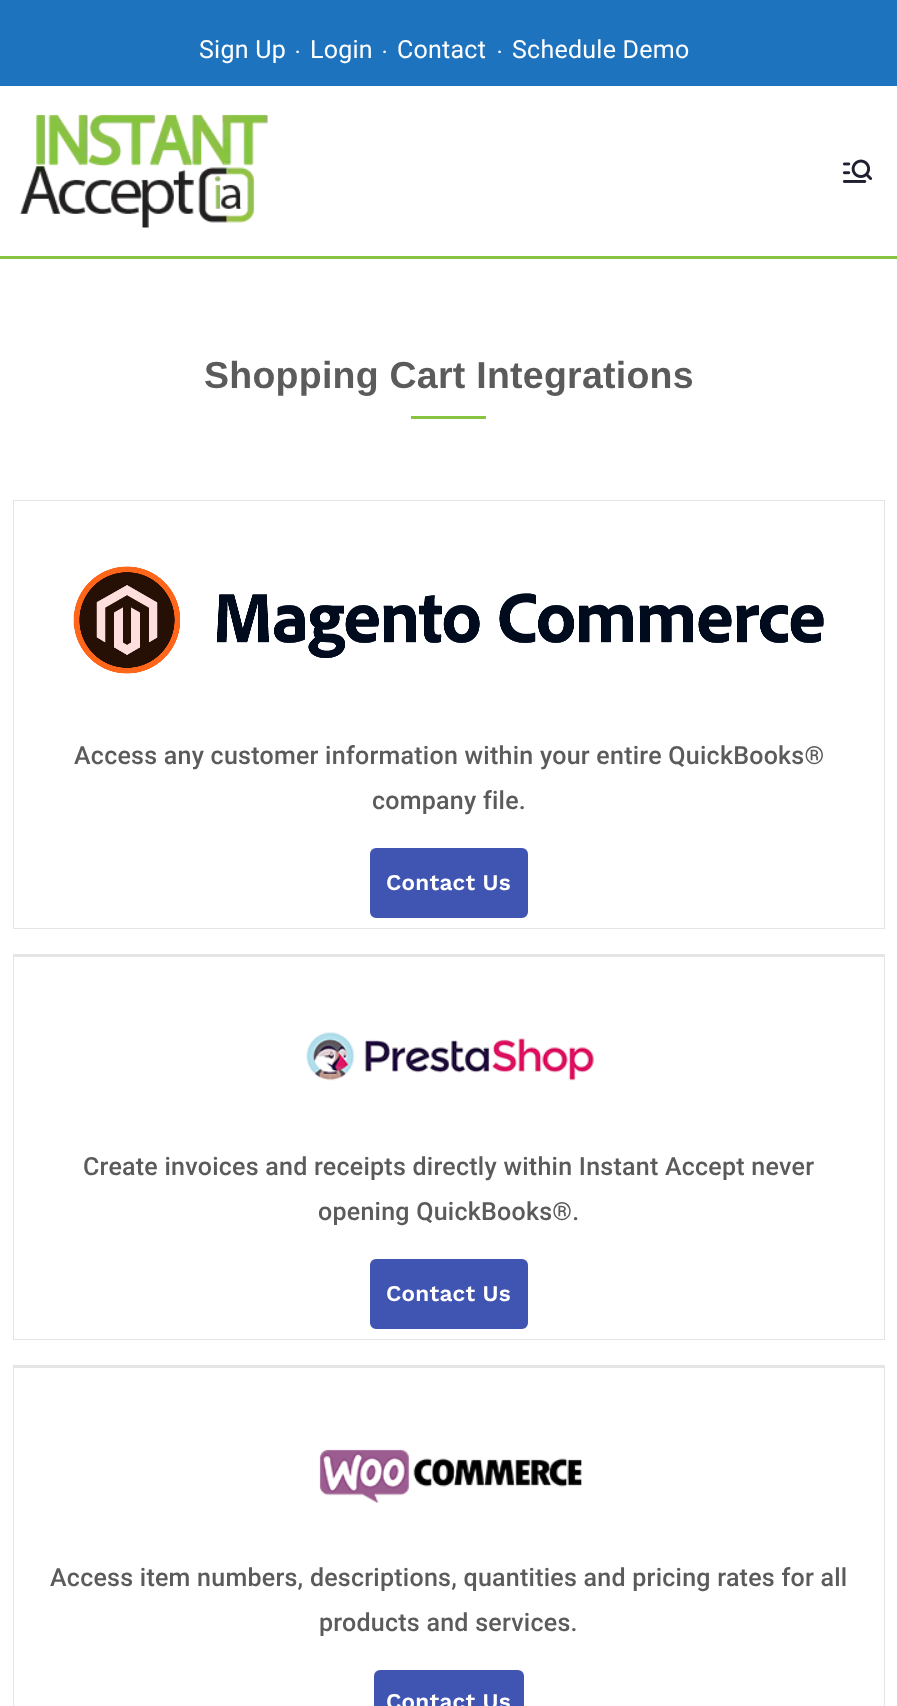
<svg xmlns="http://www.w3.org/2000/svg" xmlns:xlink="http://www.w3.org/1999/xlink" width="897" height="1706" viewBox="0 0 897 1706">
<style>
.cls-1{font:25px Roboto;letter-spacing:0.25px;fill:#ffffff}
.cls-2{font:600 18px Roboto;letter-spacing:0.25px;fill:#ffffff}
.cls-3{font:bold 37.5px Liberation Sans;letter-spacing:0.25px;fill:#5b5b5b}
.cls-4{font:500 25px Roboto;letter-spacing:0.25px;fill:#5b5b5b}
.cls-5{font:600 22.5px Work Sans;letter-spacing:0.25px;fill:#ffffff}
</style>
<rect width="100%" height="100%" fill="#87c440"/>
<rect fill="#1e73be" x="0" y="0" width="897" height="86"/>
<rect fill="#ffffff" x="0" y="86" width="897" height="170"/>
<image xlink:href="image0.png" x="20" y="114" width="248" height="114"/>
<image xlink:href="image1.png" x="842" y="159" width="31" height="24"/>
<rect fill="#ffffff" x="0" y="259" width="897" height="1447"/>
<rect fill="#87c440" x="411" y="416" width="75" height="3"/>
<rect fill="none" stroke="#e5e5e5" x="13.5" y="500.5" width="871" height="428"/>
<image xlink:href="image2.png" x="73" y="566" width="751" height="108"/>
<rect fill="#4054b2" stroke="#4054b2" stroke-width="4" x="372" y="850" width="154" height="66" rx="4"/>
<rect fill="#e5e5e5" x="13" y="954" width="872" height="3"/>
<rect fill="#e5e5e5" x="884" y="954" width="1" height="386"/>
<rect fill="#e5e5e5" x="13" y="1339" width="872" height="1"/>
<rect fill="#e5e5e5" x="13" y="954" width="1" height="386"/>
<image xlink:href="image3.png" x="306" y="1032" width="288" height="49"/>
<rect fill="#4054b2" stroke="#4054b2" stroke-width="4" x="372" y="1261" width="154" height="66" rx="4"/>
<rect fill="#e5e5e5" x="13" y="1365" width="872" height="3"/>
<rect fill="#e5e5e5" x="884" y="1365" width="1" height="341"/>
<rect fill="#e5e5e5" x="13" y="1365" width="1" height="341"/>
<image xlink:href="image4.png" x="319" y="1449" width="263" height="54"/>
<rect fill="#4054b2" x="374" y="1670" width="150" height="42" rx="6"/>
<text class="cls-1" x="199" y="58">Sign Up</text>
<text class="cls-2" x="295" y="58">·</text>
<text class="cls-1" x="310" y="58">Login</text>
<text class="cls-2" x="382" y="58">·</text>
<text class="cls-1" x="397" y="58">Contact</text>
<text class="cls-2" x="497" y="58">·</text>
<text class="cls-1" x="512" y="58">Schedule Demo</text>
<text class="cls-3" x="204" y="388">Shopping Cart Integrations</text>
<text class="cls-4" x="74" y="764">Access any customer information within your entire QuickBooks®</text>
<text class="cls-4" x="372" y="809">company file.</text>
<text class="cls-5" x="386" y="890">Contact Us</text>
<text class="cls-4" x="83" y="1175">Create invoices and receipts directly within Instant Accept never</text>
<text class="cls-4" x="318" y="1220">opening QuickBooks®.</text>
<text class="cls-5" x="386" y="1301">Contact Us</text>
<text class="cls-4" x="50" y="1586">Access item numbers, descriptions, quantities and pricing rates for all</text>
<text class="cls-4" x="319" y="1631">products and services.</text>
<text class="cls-5" x="386" y="1709">Contact Us</text>
</svg>
